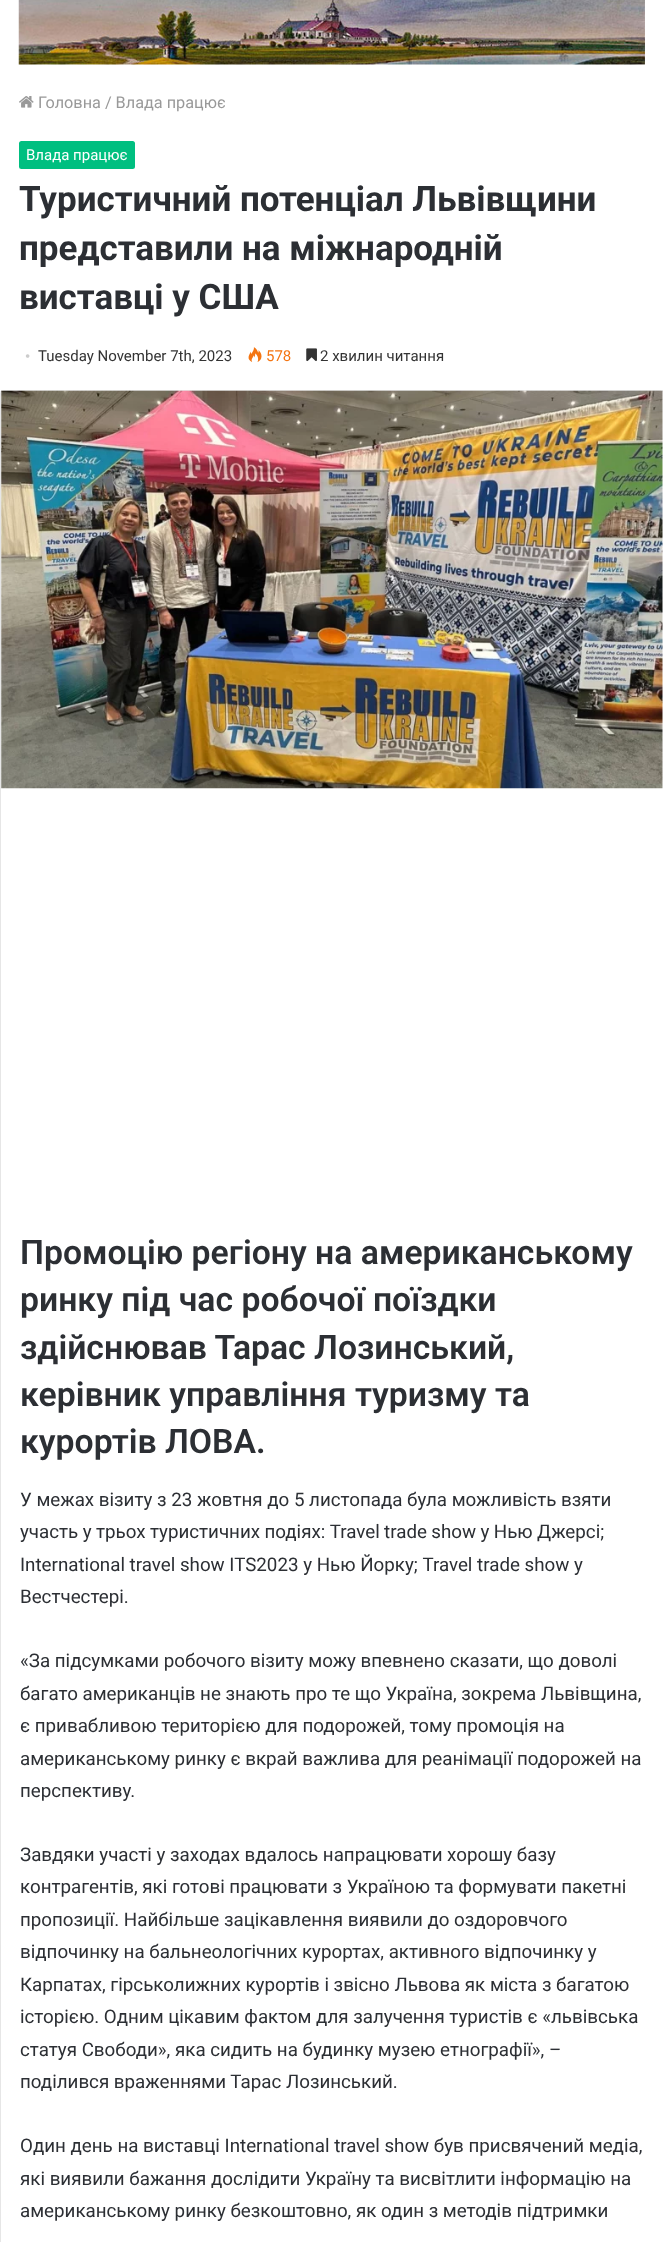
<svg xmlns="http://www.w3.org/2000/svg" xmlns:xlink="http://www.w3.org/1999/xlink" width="663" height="2242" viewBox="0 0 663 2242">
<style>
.cls-1{font:16.25px Roboto;fill:#999999}
.cls-2{font:15px Roboto;fill:#ffffff}
.cls-3{font:bold 35px Roboto;fill:#2c2f34}
.cls-4{font:15px Liberation Serif;fill:#cccccc}
.cls-5{font:15px Roboto;fill:#333333}
.cls-6{font:15px Roboto;fill:#f47512}
.cls-7{font:600 33.75px Roboto;fill:#2c2f34}
.cls-8{font:18.75px Roboto;fill:#2c2f34}
</style>
<rect width="100%" height="100%" fill="#ffffff"/>
<image xlink:href="image0.png" x="18" y="0" width="627" height="65"/>
<image xlink:href="image1.png" x="19" y="96" width="15" height="12"/>
<rect fill="#00bf80" x="19" y="141" width="116" height="28" rx="2.5"/>
<image xlink:href="image2.png" x="248" y="347" width="14" height="15"/>
<image xlink:href="image3.png" x="306" y="348" width="11" height="14"/>
<rect fill="none" stroke="#e6e6e6" x="0.5" y="390.5" width="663" height="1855" rx="2"/>
<image xlink:href="image4.png" x="1" y="390" width="662" height="399"/>
<text class="cls-1" x="38" y="108">Головна / Влада працює</text>
<text class="cls-2" x="26" y="160">Влада працює</text>
<text class="cls-3"><tspan x="19" y="211">Туристичний потенціал Львівщини</tspan><tspan x="19" y="260">представили на міжнародній</tspan><tspan x="19" y="309">виставці у США</tspan></text>
<text class="cls-4" x="25" y="361">•</text>
<text class="cls-5" x="38" y="361">Tuesday November 7th, 2023</text>
<text class="cls-6" x="266" y="361">578</text>
<text class="cls-5" x="320" y="361">2 хвилин читання</text>
<text class="cls-7"><tspan x="20" y="1264">Промоцію регіону на американському</tspan><tspan x="20" y="1311">ринку під час робочої поїздки</tspan><tspan x="20" y="1359">здійснював Тарас Лозинський,</tspan><tspan x="20" y="1406">керівник управління туризму та</tspan><tspan x="20" y="1453">курортів ЛОВА.</tspan></text>
<text class="cls-8"><tspan x="20" y="1506">У межах візиту з 23 жовтня до 5 листопада була можливість взяти</tspan><tspan x="20" y="1538" word-spacing="-0.25">участь у трьох туристичних подіях: Travel trade show у Нью Джерсі;</tspan><tspan x="20" y="1571">International travel show ITS2023 у Нью Йорку; Travel trade show у</tspan><tspan x="20" y="1603">Вестчестері.</tspan></text>
<text class="cls-8"><tspan x="20" y="1667">«За підсумками робочого візиту можу впевнено сказати, що доволі</tspan><tspan x="20" y="1700">багато американців не знають про те що Україна, зокрема Львівщина,</tspan><tspan x="20" y="1732">є привабливою територією для подорожей, тому промоція на</tspan><tspan x="20" y="1765">американському ринку є вкрай важлива для реанімації подорожей на</tspan><tspan x="20" y="1797">перспективу.</tspan></text>
<text class="cls-8"><tspan x="20" y="1861">Завдяки участі у заходах вдалось напрацювати хорошу базу</tspan><tspan x="20" y="1893">контрагентів, які готові працювати з Україною та формувати пакетні</tspan><tspan x="20" y="1926">пропозиції. Найбільше зацікавлення виявили до оздоровчого</tspan><tspan x="20" y="1958">відпочинку на бальнеологічних курортах, активного відпочинку у</tspan><tspan x="20" y="1991">Карпатах, гірськолижних курортів і звісно Львова як міста з багатою</tspan><tspan x="20" y="2023">історією. Одним цікавим фактом для залучення туристів є «львівська</tspan><tspan x="20" y="2056">статуя Свободи», яка сидить на будинку музею етнографії», –</tspan><tspan x="20" y="2088">поділився враженнями Тарас Лозинський.</tspan></text>
<text class="cls-8"><tspan x="20" y="2152">Один день на виставці International travel show був присвячений медіа,</tspan><tspan x="20" y="2185">які виявили бажання дослідити Україну та висвітлити інформацію на</tspan><tspan x="20" y="2217">американському ринку безкоштовно, як один з методів підтримки</tspan></text>
</svg>
